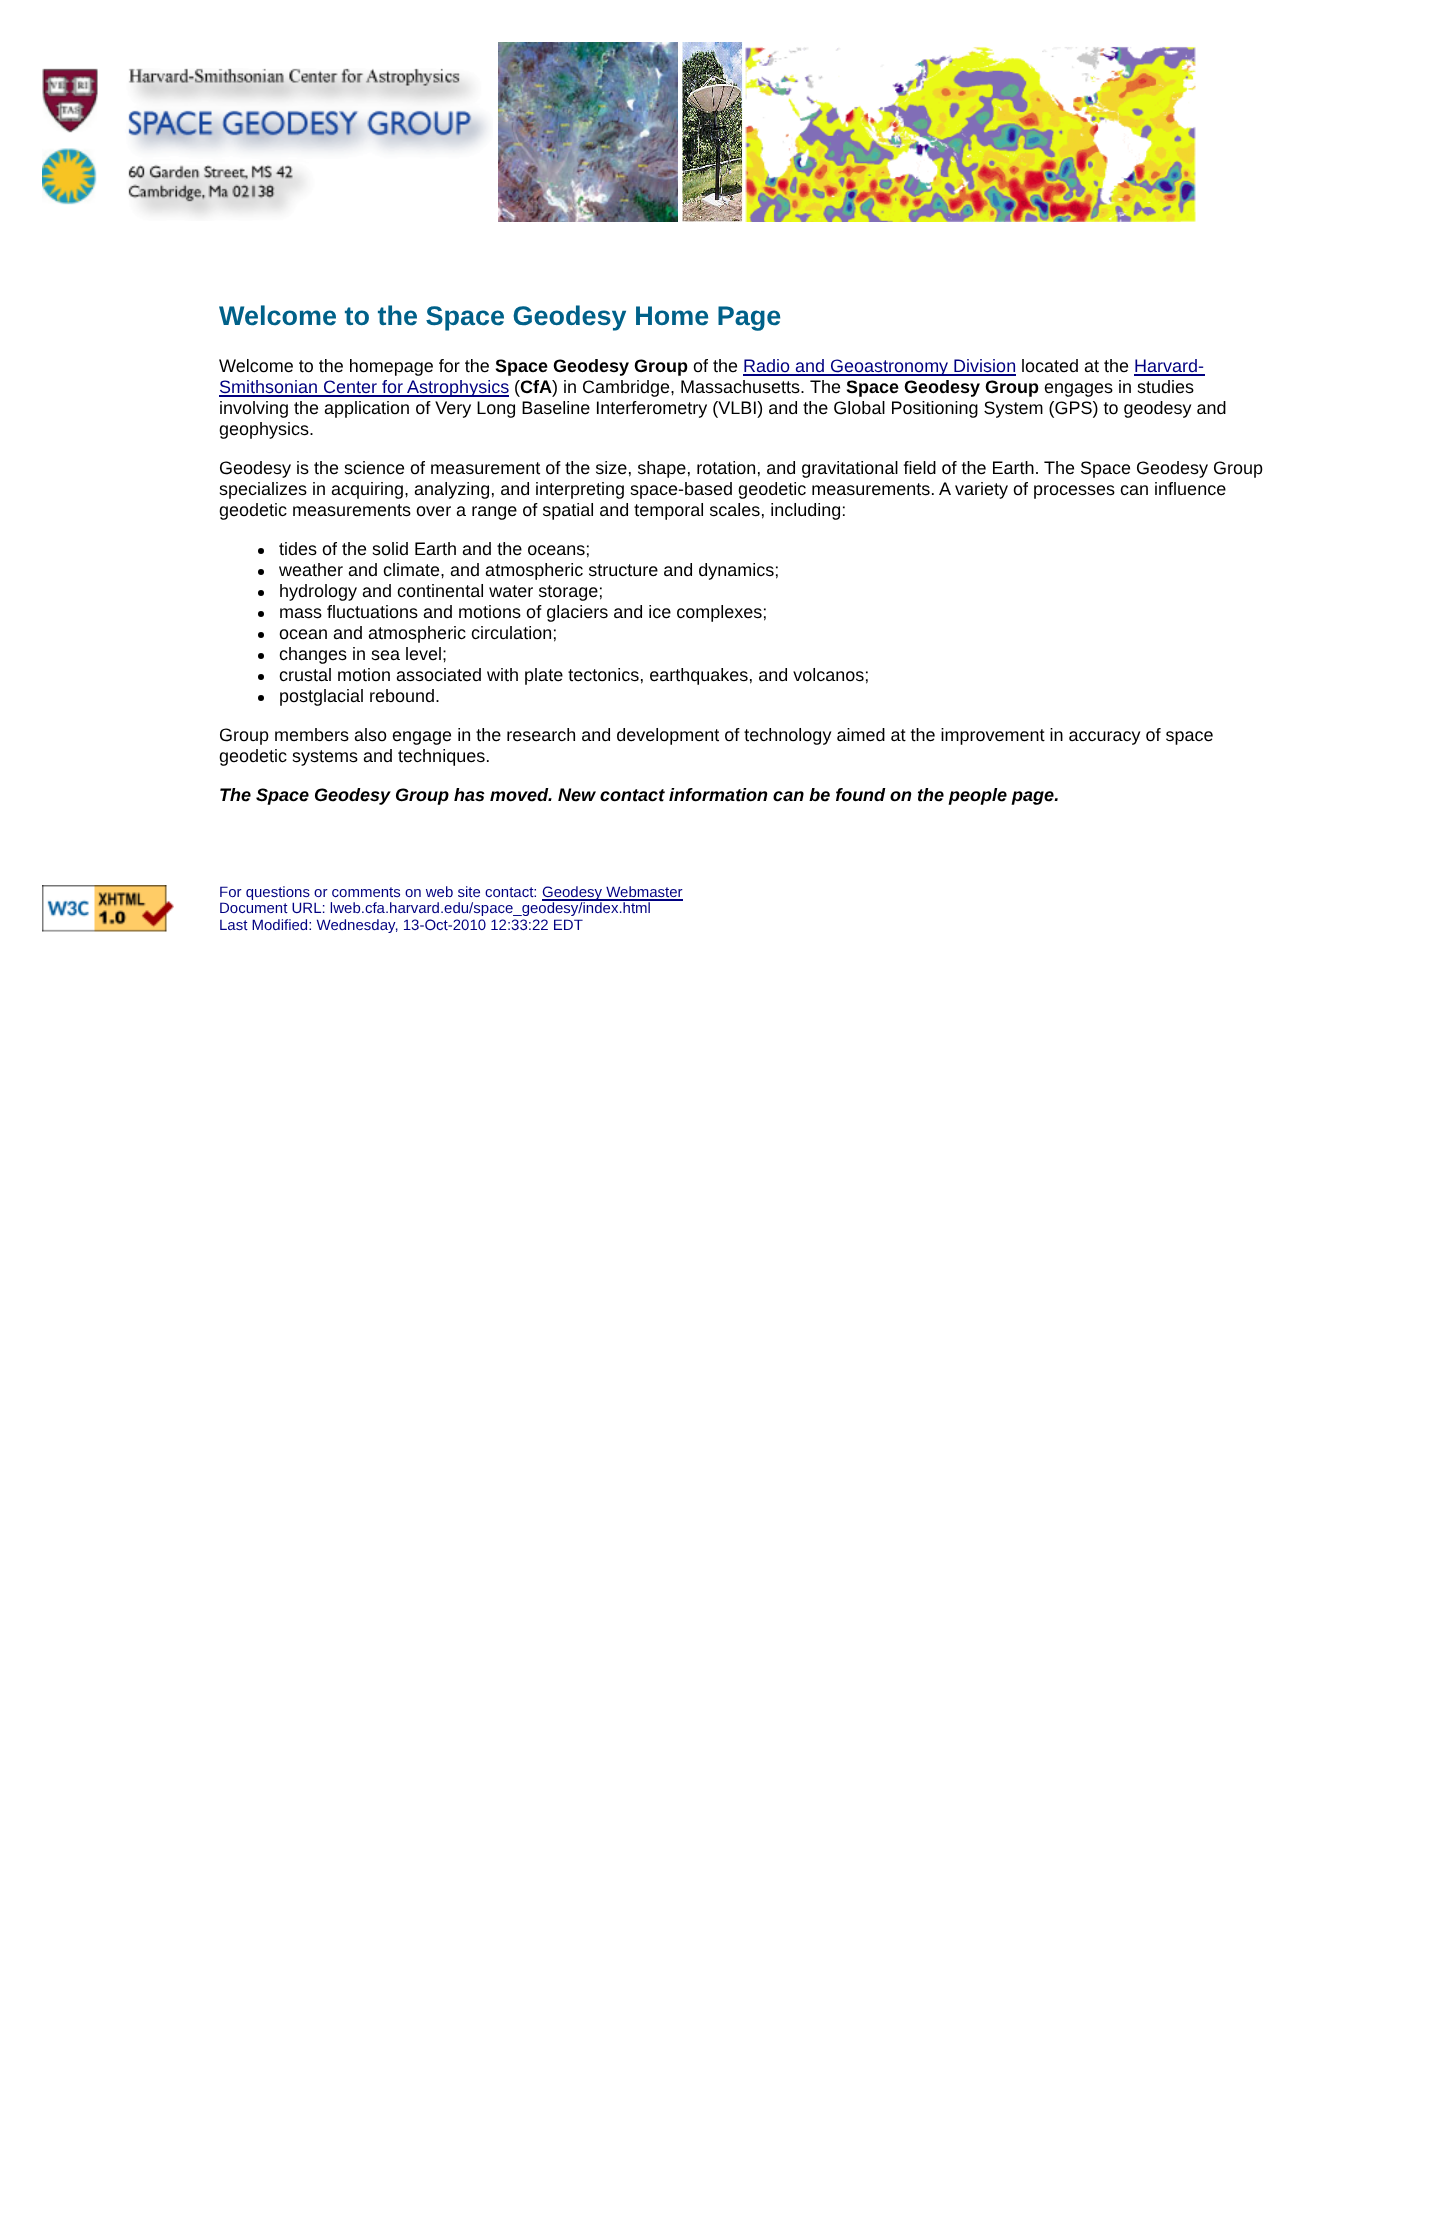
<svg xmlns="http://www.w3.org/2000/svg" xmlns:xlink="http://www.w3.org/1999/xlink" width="1448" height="2239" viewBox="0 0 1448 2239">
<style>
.cls-1{font:bold 27px Liberation Sans;fill:#006189}
.cls-2{font:18px Liberation Sans;fill:#000000}
.cls-3{font:bold 18px Liberation Sans;fill:#000000}
.cls-4{font:18px Liberation Sans;fill:#000080}
.cls-5{font:italic bold 18px Liberation Sans;fill:#000000}
.cls-6{font:15px Liberation Sans;fill:#000080}
</style>
<rect width="100%" height="100%" fill="#ffffff"/>
<image xlink:href="image0.png" x="42" y="68" width="451" height="153"/>
<image xlink:href="image1.png" x="498" y="42" width="180" height="180"/>
<image xlink:href="image2.png" x="682" y="42" width="61" height="180"/>
<image xlink:href="image3.png" x="745" y="46" width="451" height="176"/>
<rect fill="#000080" x="743" y="374" width="273" height="2"/>
<rect fill="#000080" x="1134" y="374" width="71" height="2"/>
<rect fill="#000080" x="219" y="395" width="290" height="2"/>
<circle fill="#000000" cx="261" cy="551" r="3"/>
<circle fill="#000000" cx="261" cy="572" r="3"/>
<circle fill="#000000" cx="261" cy="593" r="3"/>
<circle fill="#000000" cx="261" cy="614" r="3"/>
<circle fill="#000000" cx="261" cy="635" r="3"/>
<circle fill="#000000" cx="261" cy="656" r="3"/>
<circle fill="#000000" cx="261" cy="677" r="3"/>
<circle fill="#000000" cx="261" cy="698" r="3"/>
<image xlink:href="image4.png" x="42" y="885" width="132" height="47"/>
<rect fill="#000080" x="542" y="899" width="141" height="2"/>
<text class="cls-1" x="219" y="325">Welcome to the Space Geodesy Home Page</text>
<text class="cls-2" x="219" y="372">Welcome to the homepage for the</text>
<text class="cls-3" x="495" y="372">Space Geodesy Group</text>
<text class="cls-2" x="693" y="372">of the</text>
<text class="cls-4" x="743" y="372">Radio and Geoastronomy Division</text>
<text class="cls-2" x="1021" y="372">located at the</text>
<text class="cls-4" x="1134" y="372">Harvard-</text>
<text class="cls-4" x="219" y="393">Smithsonian Center for Astrophysics</text>
<text class="cls-2" x="514" y="393">(</text>
<text class="cls-3" x="520" y="393">CfA</text>
<text class="cls-2" x="552" y="393">) in Cambridge, Massachusetts.</text>
<text class="cls-2" x="810" y="393">The</text>
<text class="cls-3" x="846" y="393">Space Geodesy Group</text>
<text class="cls-2" x="1044" y="393">engages in studies</text>
<text class="cls-2"><tspan x="219" y="414">involving the application of Very Long Baseline Interferometry (VLBI) and the Global Positioning System (GPS) to geodesy and</tspan><tspan x="219" y="435">geophysics.</tspan></text>
<text class="cls-2" x="219" y="474">Geodesy is the science of measurement of the size, shape, rotation, and gravitational field of the Earth.</text>
<text class="cls-2" x="1044" y="474">The Space Geodesy Group</text>
<text class="cls-2" x="219" y="495">specializes in acquiring, analyzing, and</text>
<text class="cls-2" x="535" y="495">interpreting space-based geodetic measurements.</text>
<text class="cls-2" x="939" y="495">A variety of processes can influence</text>
<text class="cls-2" x="219" y="516">geodetic measurements over a range of spatial and temporal scales, including:</text>
<text class="cls-2"><tspan x="279" y="555">tides of the solid Earth and the oceans;</tspan><tspan x="279" y="576">weather and climate, and atmospheric structure and dynamics;</tspan><tspan x="279" y="597">hydrology and continental water storage;</tspan><tspan x="279" y="618">mass fluctuations and motions of glaciers and ice complexes;</tspan><tspan x="279" y="639">ocean and atmospheric circulation;</tspan><tspan x="279" y="660">changes in sea level;</tspan><tspan x="279" y="681">crustal motion associated with plate tectonics, earthquakes, and volcanos;</tspan><tspan x="279" y="702">postglacial rebound.</tspan></text>
<text class="cls-2"><tspan x="219" y="741">Group members also engage in the research and development of technology aimed at the improvement in accuracy of space</tspan><tspan x="219" y="762">geodetic systems and techniques.</tspan></text>
<text class="cls-5" x="219" y="801">The Space Geodesy Group has moved. New contact information can be found on the people page.</text>
<text class="cls-6" x="219" y="897">For questions or comments on web site contact:</text>
<text class="cls-6" x="542" y="897">Geodesy Webmaster</text>
<text class="cls-6"><tspan x="219" y="913">Document URL: lweb.cfa.harvard.edu/space_geodesy/index.html</tspan><tspan x="219" y="930">Last Modified: Wednesday, 13-Oct-2010 12:33:22 EDT</tspan></text>
</svg>
